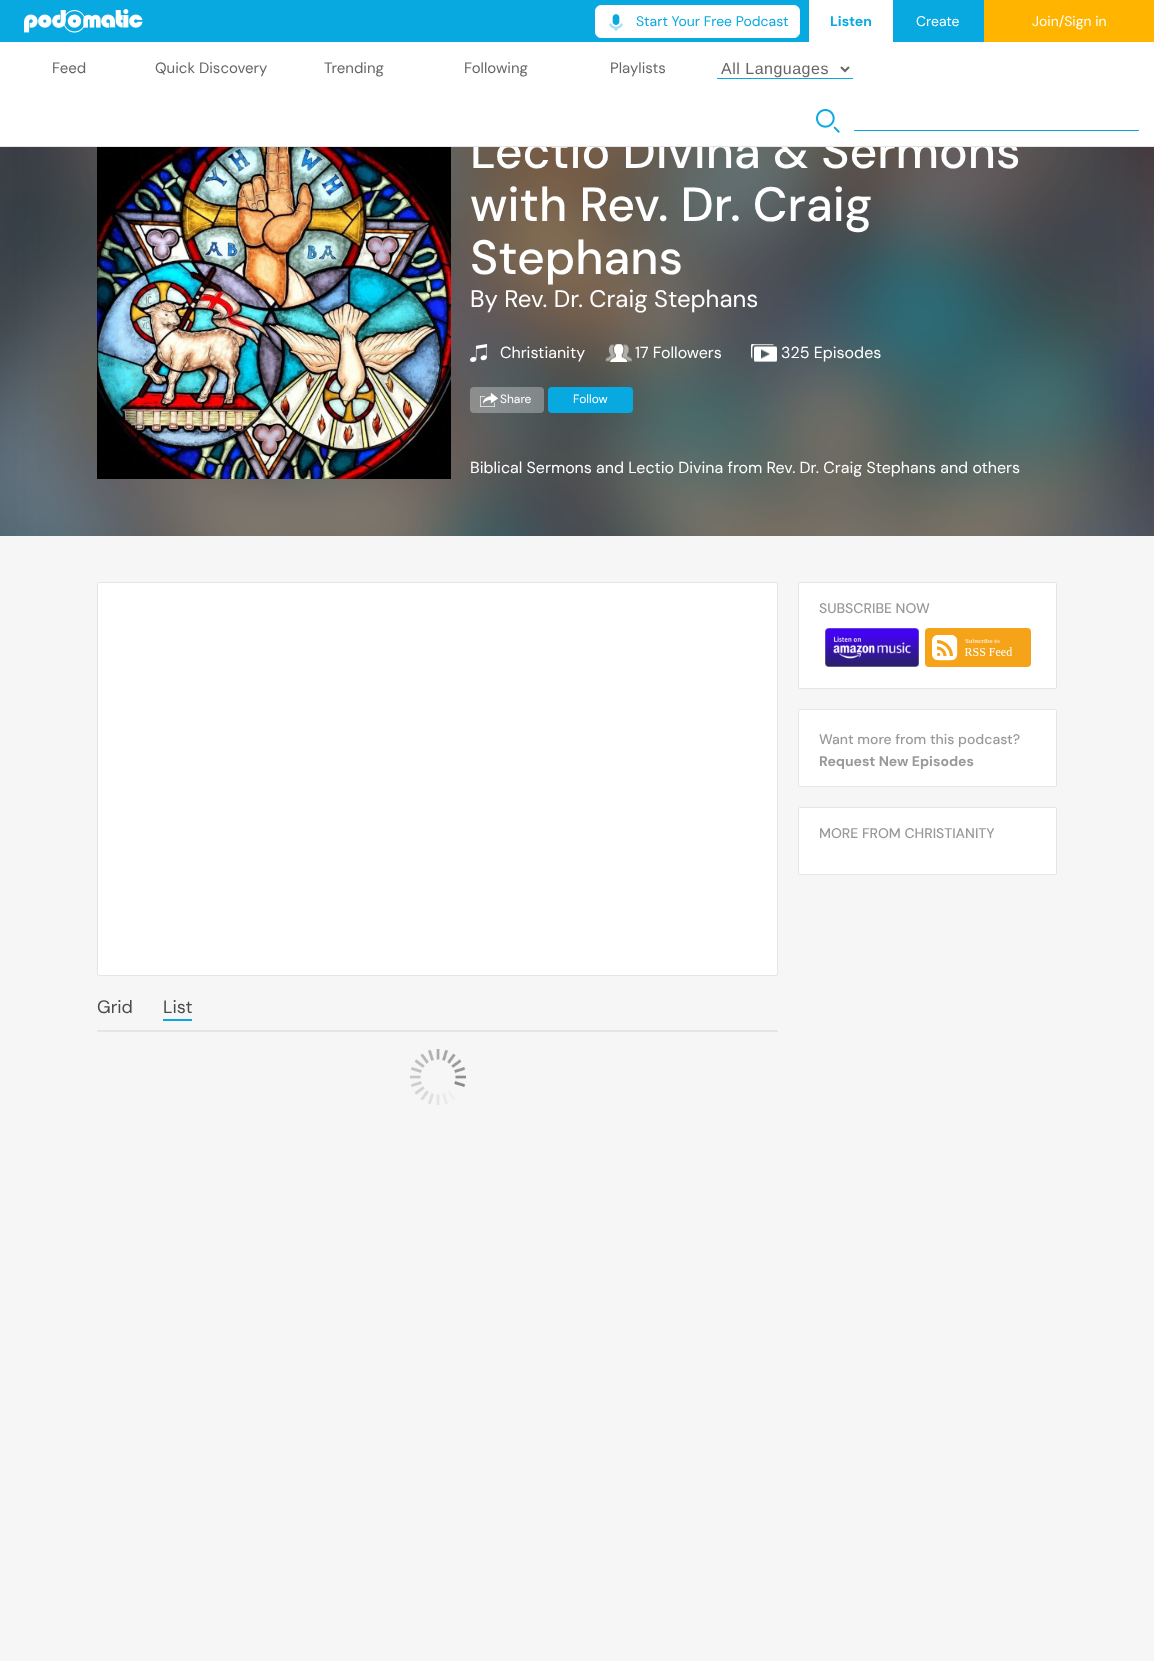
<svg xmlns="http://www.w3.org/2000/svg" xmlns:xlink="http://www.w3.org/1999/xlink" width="1154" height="1661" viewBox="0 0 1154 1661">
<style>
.cls-1{font:14px DM Sans;fill:#07a9e0}
.cls-2{font:bold 14px DM Sans;fill:#07a9e0}
.cls-3{font:14px DM Sans;fill:#ffffff}
.cls-4{font:15px DM Sans;fill:#666666}
.cls-5{font:16px Liberation Sans;letter-spacing:0.5px;fill:#666666}
.cls-6{font:500 48px DM Sans;fill:#ffffff}
.cls-7{font:24px DM Sans;fill:#ffffff}
.cls-8{font:16px DM Sans;fill:#ffffff}
.cls-9{font:12px DM Sans;fill:#ffffff}
.cls-10{font:500 14px DM Sans;fill:#999999}
.cls-11{font:bold 14px DM Sans;fill:#999999}
.cls-12{font:18px DM Sans;fill:#4a4a4a}
</style>
<rect width="100%" height="100%" fill="#f6f6f6"/>
<rect fill="#878787" x="0" y="147" width="1154" height="389"/>
<rect fill="#07a9e0" x="0" y="0" width="984" height="42"/>
<image xlink:href="image0.png" x="24" y="9" width="119" height="24"/>
<rect fill="#ffffff" stroke="#ffffff" x="595.5" y="5.5" width="204" height="32" rx="5.5"/>
<image xlink:href="image1.png" x="609" y="14" width="14" height="17"/>
<rect fill="#ffffff" x="809" y="0" width="84" height="42"/>
<rect fill="#ffb400" x="984" y="0" width="170" height="42"/>
<rect fill="#ffffff" x="0" y="42" width="1154" height="104"/>
<rect fill="#07a9e0" x="717" y="78" width="136" height="1"/>
<path fill="none" stroke="#666666" stroke-width="2" d="M841 67L845 71L849 67"/>
<image xlink:href="image2.png" x="816" y="109" width="24" height="24"/>
<rect fill="#07a9e0" x="854" y="130" width="285" height="1"/>
<image xlink:href="image8.png" x="0" y="147" width="1154" height="389"/>
<image xlink:href="image3.png" x="97" y="147" width="354" height="332"/>
<image xlink:href="image4.png" x="470" y="344" width="18" height="18"/>
<image xlink:href="image5.png" x="605" y="344" width="27" height="18"/>
<image xlink:href="image6.png" x="751" y="344" width="26" height="18"/>
<rect fill="#ffffff" fill-opacity="0.3" x="470" y="387" width="74" height="26" rx="4"/>
<image xlink:href="image7.png" x="480" y="393" width="18" height="14"/>
<rect fill="#07a9e0" x="548" y="387" width="85" height="26" rx="4"/>
<rect fill="#ffffff" stroke="#e5e5e5" x="798.5" y="582.5" width="258" height="106" rx="1.5"/>
<image xlink:href="image9.png" x="825" y="628" width="94" height="39"/>
<image xlink:href="image10.png" x="925" y="628" width="106" height="39"/>
<rect fill="#ffffff" stroke="#e5e5e5" x="798.5" y="709.5" width="258" height="77" rx="1.5"/>
<rect fill="#ffffff" stroke="#e5e5e5" x="798.5" y="807.5" width="258" height="67" rx="1.5"/>
<rect fill="#ffffff" stroke="#e5e5e5" x="97.5" y="582.5" width="680" height="393" rx="1.5"/>
<rect fill="#07a9e0" x="163" y="1019" width="29" height="2"/>
<rect fill="#e5e5e5" x="97" y="1030" width="681" height="2" rx="1"/>
<image xlink:href="image11.png" x="410" y="1049" width="56" height="56"/>
<text class="cls-1" x="636" y="26">Start Your Free Podcast</text>
<text class="cls-2" x="830" y="26">Listen</text>
<text class="cls-3" x="916" y="26">Create</text>
<text class="cls-3" x="1032" y="26">Join/Sign in</text>
<text class="cls-4" x="52" y="73">Feed</text>
<text class="cls-4" x="155" y="73">Quick Discovery</text>
<text class="cls-4" x="324" y="73">Trending</text>
<text class="cls-4" x="464" y="73">Following</text>
<text class="cls-4" x="610" y="73">Playlists</text>
<text class="cls-5" x="721" y="74">All Languages</text>
<text class="cls-6" x="470" y="168">Lectio Divina &amp; Sermons</text>
<rect fill="#e6e6e6" x="0" y="146" width="1154" height="1"/>
<text class="cls-6"><tspan x="470" y="221">with Rev. Dr. Craig</tspan><tspan x="470" y="274">Stephans</tspan></text>
<text class="cls-7" x="470" y="307">By Rev. Dr. Craig Stephans</text>
<text class="cls-8" x="500" y="358">Christianity</text>
<text class="cls-8" x="635" y="358">17 Followers</text>
<text class="cls-8" x="781" y="358">325 Episodes</text>
<text class="cls-9" x="500" y="403">Share</text>
<text class="cls-9" x="573" y="403">Follow</text>
<text class="cls-8" x="470" y="473">Biblical Sermons and Lectio Divina from Rev. Dr. Craig Stephans and others</text>
<text class="cls-10" x="819" y="613">SUBSCRIBE NOW</text>
<text class="cls-10" x="819" y="744">Want more from this podcast?</text>
<text class="cls-11" x="819" y="766">Request New Episodes</text>
<text class="cls-10" x="819" y="838">MORE FROM CHRISTIANITY</text>
<text class="cls-12" x="97" y="1013">Grid</text>
<text class="cls-12" x="163" y="1013">List</text>
</svg>
